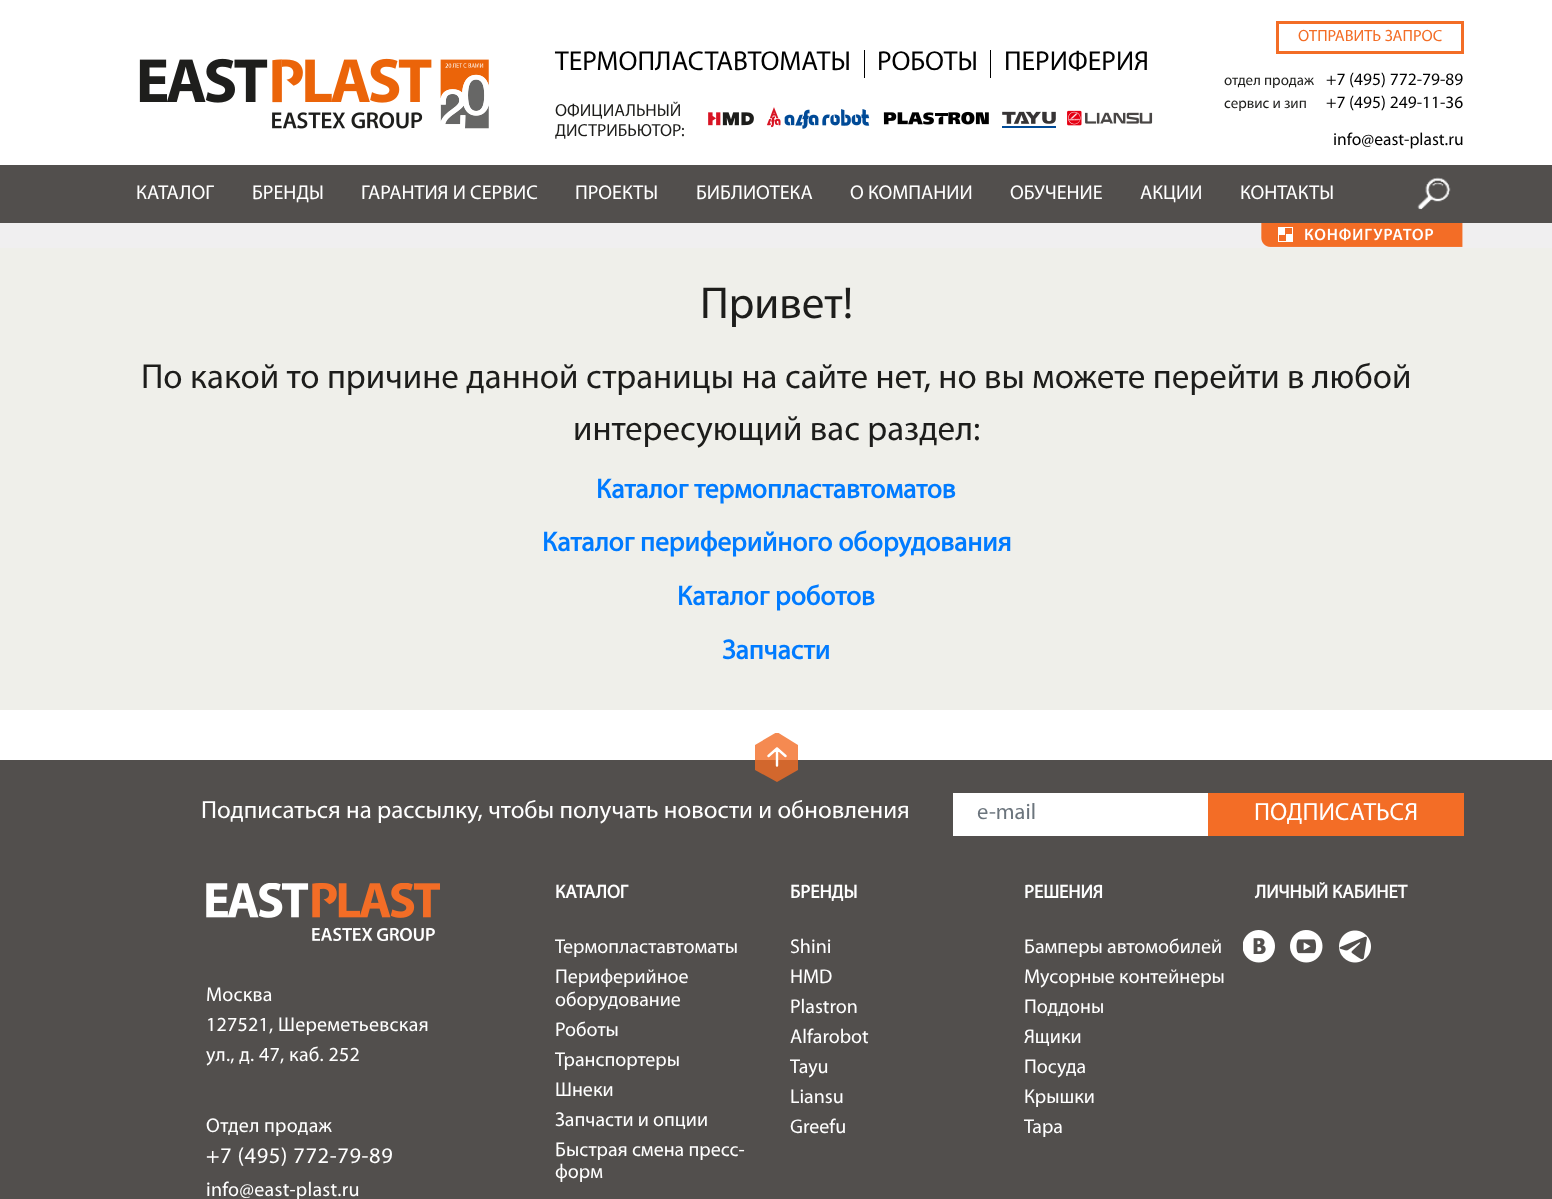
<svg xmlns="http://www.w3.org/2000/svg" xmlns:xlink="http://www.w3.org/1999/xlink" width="1552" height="1199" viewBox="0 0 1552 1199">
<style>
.cls-1{font:27.5px Myriad;fill:#010101}
.cls-2{font:17.5px Myriad;fill:#1d1d1b}
.cls-3{font:16.25px Myriad;fill:#f36d26}
.cls-4{font:15px Myriad;fill:#1d1d1b}
.cls-5{font:17.5px Myriad;fill:#010101}
.cls-6{font:20px Myriad;fill:#ffffff}
.cls-7{font:45px Myriad;fill:#1d1d1b}
.cls-8{font:35px Myriad;fill:#1d1d1b}
.cls-9{font:bold 27.5px Myriad;fill:#007bff}
.cls-10{font:25px Myriad;fill:#ffffff}
.cls-11{font:22.5px Myriad;fill:#6c757d}
.cls-12{font:20px Myriad;letter-spacing:0.25px;fill:#ffffff}
.cls-13{font:22.5px Myriad;letter-spacing:0.6px;fill:#ffffff}
.cls-14{font:bold 18.75px Myriad;fill:#ffffff}
</style>
<defs>
<clipPath id="clip1"><rect x="755" y="733" width="43" height="50"/></clipPath>
</defs>
<rect width="100%" height="100%" fill="#ffffff"/>
<image xlink:href="image0.png" x="139" y="58" width="350" height="71"/>
<rect fill="#010101" x="864" y="50" width="1" height="28"/>
<rect fill="#010101" x="990" y="50" width="1" height="28"/>
<image xlink:href="image1.png" x="708" y="107" width="445" height="22"/>
<rect fill="none" stroke="#f36d26" stroke-width="3" x="1277.5" y="22.5" width="185" height="30"/>
<rect fill="#524f4d" x="0" y="165" width="1552" height="58"/>
<image xlink:href="image2.png" x="1417" y="177" width="34" height="33"/>
<rect fill="#f0eff0" x="0" y="223" width="1552" height="25"/>
<image xlink:href="image3.png" x="1261" y="223" width="202" height="24"/>
<rect fill="#efefea" x="0" y="248" width="1552" height="462"/>
<rect fill="#524f4d" x="0" y="760" width="1552" height="439"/>
<g clip-path="url(#clip1)">
<path fill="#f36d26" fill-opacity="0.8" d="M798 770L777 782L755 770V745L777 732L798 745Z"/>
</g>
<path fill="none" stroke="#ffffff" stroke-width="2.4" stroke-linecap="round" stroke-linejoin="round" d="M785.5 756L777 748.5V765.5M768.5 756L777 748.5V765.5"/>
<rect fill="#ffffff" x="953" y="793" width="255" height="43"/>
<rect fill="#f36d26" x="1208" y="793" width="256" height="43"/>
<image xlink:href="image4.png" x="206" y="883" width="234" height="58"/>
<image xlink:href="image5.png" x="1243" y="930" width="32" height="33"/>
<image xlink:href="image6.png" x="1290" y="930" width="33" height="33"/>
<image xlink:href="image7.png" x="1339" y="930" width="32" height="33"/>
<text class="cls-1" x="555" y="70">ТЕРМОПЛАСТАВТОМАТЫ</text>
<text class="cls-1" x="877" y="70">РОБОТЫ</text>
<text class="cls-1" x="1004" y="70">ПЕРИФЕРИЯ</text>
<text class="cls-2"><tspan x="555" y="116">ОФИЦИАЛЬНЫЙ</tspan><tspan x="555" y="136">ДИСТРИБЬЮТОР:</tspan></text>
<text class="cls-3" x="1298" y="41">ОТПРАВИТЬ ЗАПРОС</text>
<text class="cls-4" x="1224" y="85">отдел продаж</text>
<text class="cls-5" x="1326" y="85">+7 (495) 772-79-89</text>
<text class="cls-4" x="1224" y="108">сервис и зип</text>
<text class="cls-5" x="1326" y="108">+7 (495) 249-11-36</text>
<text class="cls-5" x="1333" y="145">info@east-plast.ru</text>
<text class="cls-6" x="136" y="199">КАТАЛОГ</text>
<text class="cls-6" x="252" y="199">БРЕНДЫ</text>
<text class="cls-6" x="361" y="199">ГАРАНТИЯ И СЕРВИС</text>
<text class="cls-6" x="575" y="199">ПРОЕКТЫ</text>
<text class="cls-6" x="696" y="199">БИБЛИОТЕКА</text>
<text class="cls-6" x="850" y="199">О КОМПАНИИ</text>
<text class="cls-6" x="1010" y="199">ОБУЧЕНИЕ</text>
<text class="cls-6" x="1140" y="199">АКЦИИ</text>
<text class="cls-6" x="1240" y="199">КОНТАКТЫ</text>
<text class="cls-7" x="700" y="318">Привет!</text>
<text class="cls-8" x="141" y="388">По какой то причине данной страницы на сайте нет, но вы можете перейти в любой</text>
<text class="cls-8" x="573" y="440">интересующий вас раздел:</text>
<text class="cls-9" x="596" y="498">Каталог термопластавтоматов</text>
<text class="cls-9" x="542" y="551">Каталог периферийного оборудования</text>
<text class="cls-9" x="677" y="605">Каталог роботов</text>
<text class="cls-9" x="722" y="659">Запчасти</text>
<text class="cls-10" x="201" y="818">Подписаться на рассылку, чтобы получать новости и обновления</text>
<text class="cls-11" x="977" y="819">e-mail</text>
<text class="cls-10" x="1254" y="820">ПОДПИСАТЬСЯ</text>
<text class="cls-12"><tspan x="206" y="1001">Москва</tspan><tspan x="206" y="1031">127521, Шереметьевская</tspan><tspan x="206" y="1061">ул., д. 47, каб. 252</tspan></text>
<text class="cls-12" x="206" y="1132">Отдел продаж</text>
<text class="cls-13" x="206" y="1163">+7 (495) 772-79-89</text>
<text class="cls-12" x="206" y="1196">info@east-plast.ru</text>
<text class="cls-14" x="555" y="898">КАТАЛОГ</text>
<text class="cls-6"><tspan x="555" y="953">Термопластавтоматы</tspan><tspan x="555" y="983">Периферийное</tspan><tspan x="555" y="1006">оборудование</tspan><tspan x="555" y="1036">Роботы</tspan><tspan x="555" y="1066">Транспортеры</tspan><tspan x="555" y="1096">Шнеки</tspan><tspan x="555" y="1126">Запчасти и опции</tspan><tspan x="555" y="1156">Быстрая смена пресс-</tspan><tspan x="555" y="1178">форм</tspan></text>
<text class="cls-14" x="790" y="898">БРЕНДЫ</text>
<text class="cls-6"><tspan x="790" y="953">Shini</tspan><tspan x="790" y="983">HMD</tspan><tspan x="790" y="1013">Plastron</tspan><tspan x="790" y="1043">Alfarobot</tspan><tspan x="790" y="1073">Tayu</tspan><tspan x="790" y="1103">Liansu</tspan><tspan x="790" y="1133">Greefu</tspan></text>
<text class="cls-14" x="1024" y="898">РЕШЕНИЯ</text>
<text class="cls-6"><tspan x="1024" y="953">Бамперы автомобилей</tspan><tspan x="1024" y="983">Мусорные контейнеры</tspan><tspan x="1024" y="1013">Поддоны</tspan><tspan x="1024" y="1043">Ящики</tspan><tspan x="1024" y="1073">Посуда</tspan><tspan x="1024" y="1103">Крышки</tspan><tspan x="1024" y="1133">Тара</tspan></text>
<text class="cls-14" x="1255" y="898">ЛИЧНЫЙ КАБИНЕТ</text>
</svg>
